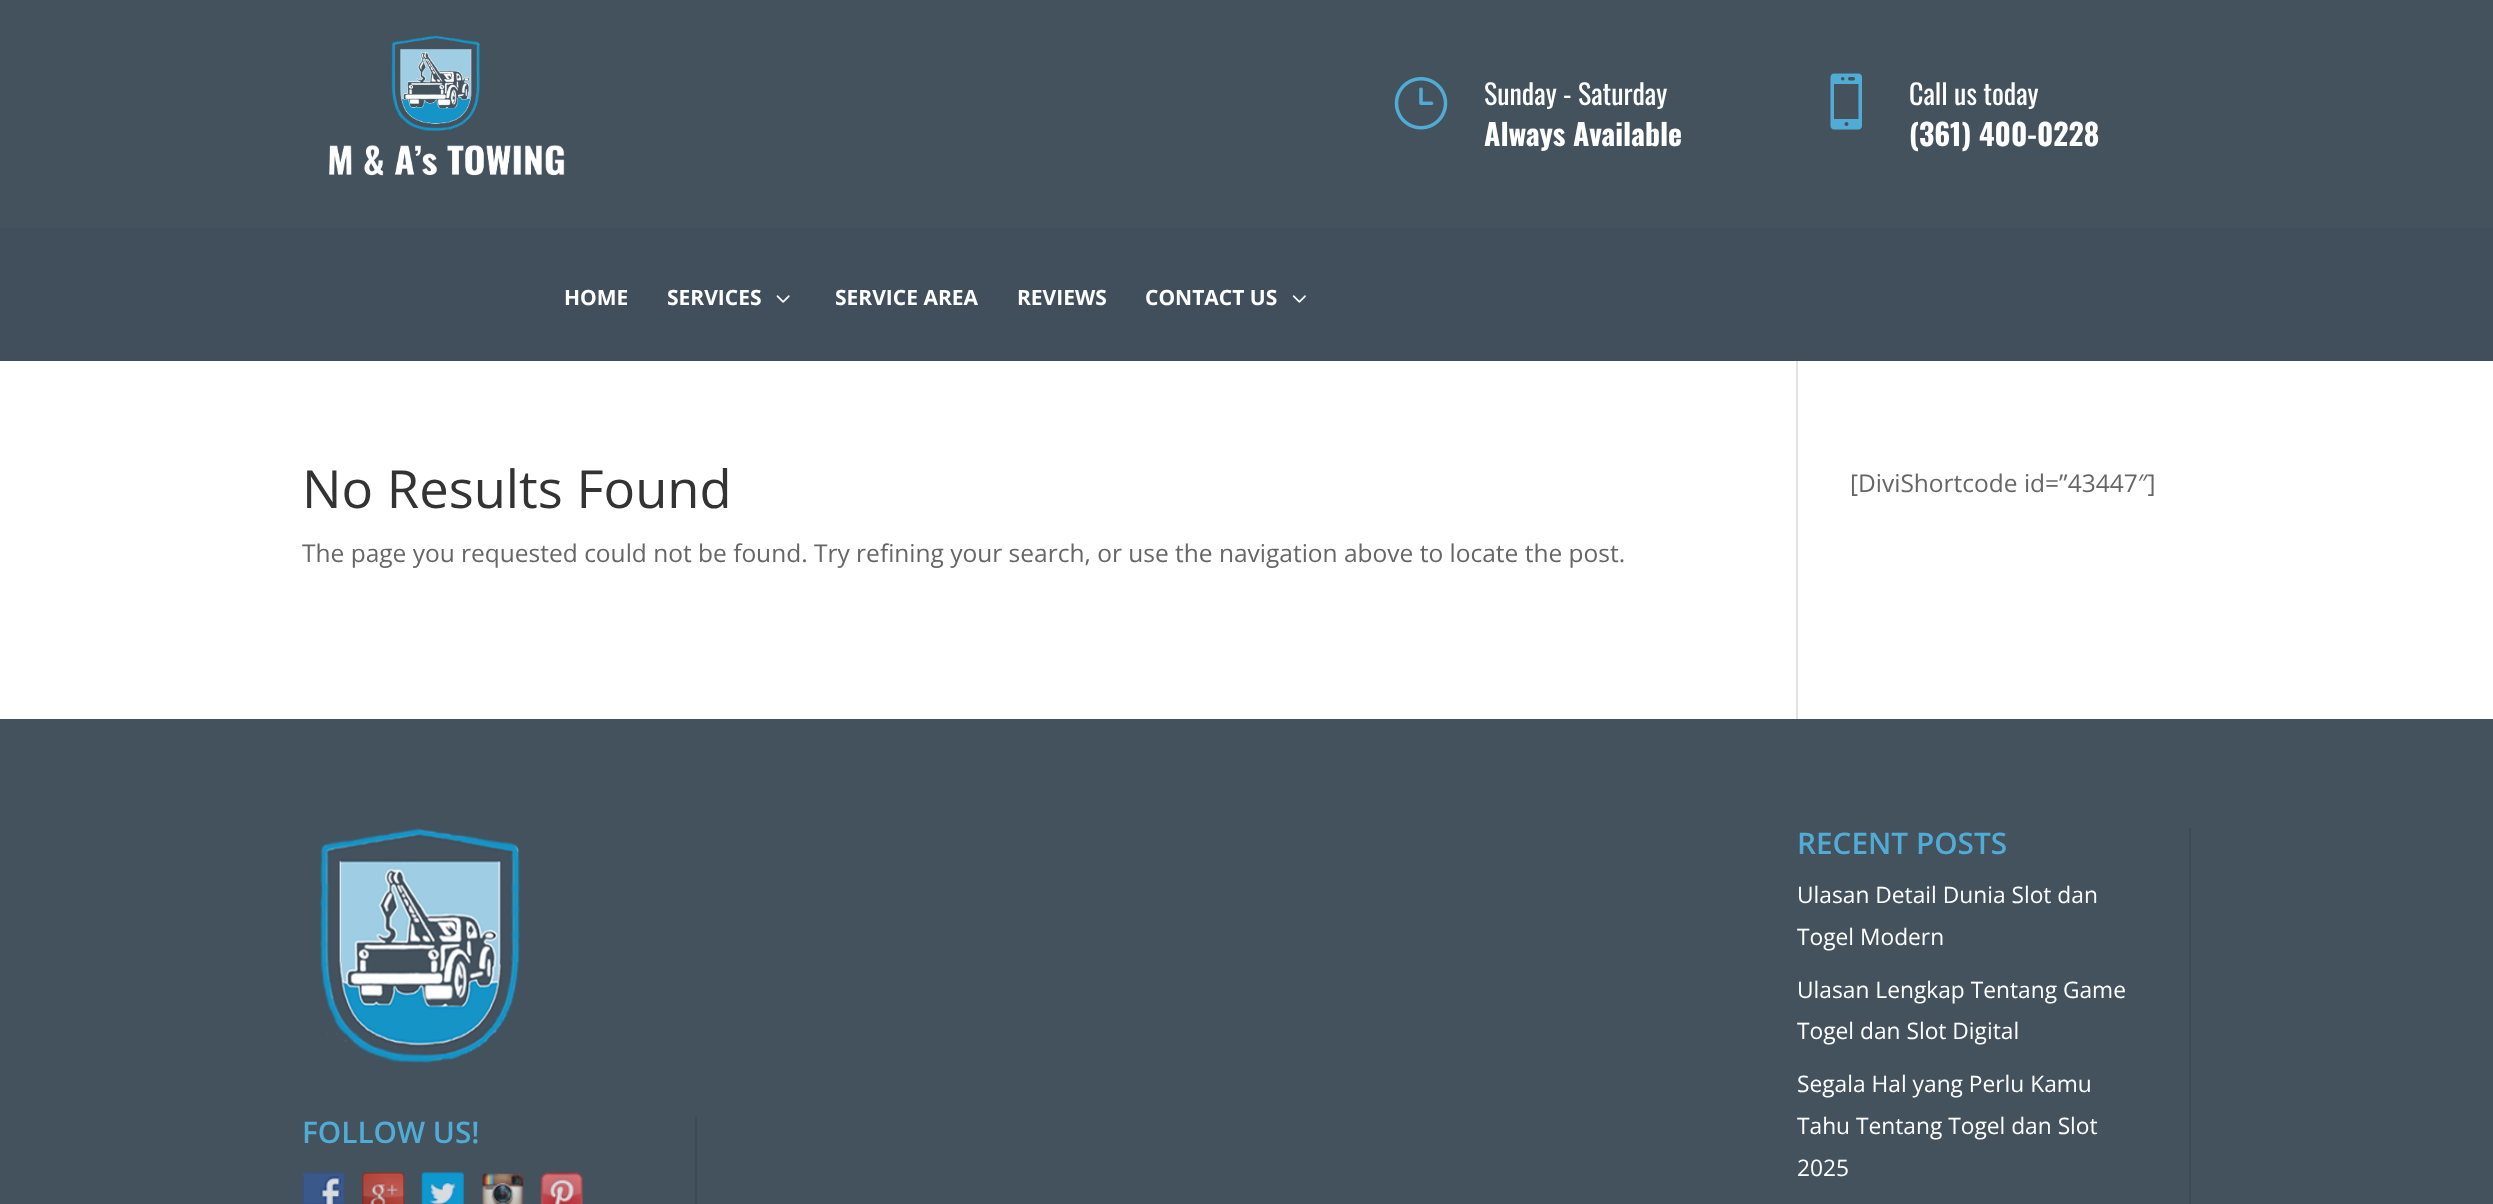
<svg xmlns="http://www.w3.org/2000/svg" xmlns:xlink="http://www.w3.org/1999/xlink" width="2493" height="1204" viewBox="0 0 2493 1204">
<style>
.cls-1{font:28px Oswald;fill:#ffffff}
.cls-2{font:bold 29.75px Oswald;fill:#ffffff}
.cls-3{font:bold 21px Open Sans;fill:#ffffff}
.cls-4{font:52.5px Open Sans;fill:#333333}
.cls-5{font:24.5px Open Sans;fill:#666666}
.cls-6{font:600 29.75px Open Sans;fill:#51acd5}
.cls-7{font:22.75px Open Sans;fill:#ffffff}
</style>
<rect width="100%" height="100%" fill="#ffffff"/>
<rect fill="#44525e" x="0" y="0" width="2493" height="228"/>
<image xlink:href="image0.png" x="329" y="35" width="236" height="141"/>
<image xlink:href="image1.png" x="1394" y="77" width="54" height="53"/>
<image xlink:href="image2.png" x="1830" y="73" width="32" height="57"/>
<rect fill="#414e5b" x="0" y="228" width="2493" height="133"/>
<image xlink:href="image3.png" x="776" y="295" width="14" height="8"/>
<image xlink:href="image4.png" x="1292" y="295" width="14" height="8"/>
<rect fill="#e2e2e2" x="1796" y="361" width="2" height="358"/>
<rect fill="#44525e" x="0" y="719" width="2493" height="485"/>
<image xlink:href="image5.png" x="319" y="828" width="202" height="236"/>
<rect fill="#3d4a55" x="695" y="1117" width="2" height="87"/>
<image xlink:href="image6.png" x="302" y="1172" width="43" height="32"/>
<image xlink:href="image7.png" x="362" y="1172" width="43" height="32"/>
<image xlink:href="image8.png" x="421" y="1172" width="43" height="32"/>
<image xlink:href="image9.png" x="482" y="1173" width="42" height="31"/>
<image xlink:href="image10.png" x="540" y="1172" width="43" height="32"/>
<rect fill="#3d4a55" x="2189" y="828" width="2" height="376"/>
<text class="cls-1" x="1484" y="105">Sunday - Saturday</text>
<text class="cls-2" x="1484" y="146">Always Available</text>
<text class="cls-1" x="1909" y="105">Call us today</text>
<text class="cls-2" x="1909" y="146">(361) 400-0228</text>
<text class="cls-3" x="564" y="305">HOME</text>
<text class="cls-3" x="667" y="305">SERVICES</text>
<text class="cls-3" x="835" y="305">SERVICE AREA</text>
<text class="cls-3" x="1017" y="305">REVIEWS</text>
<text class="cls-3" x="1145" y="305">CONTACT US</text>
<text class="cls-4" x="302" y="508">No Results Found</text>
<text class="cls-5" x="302" y="562">The page you requested could not be found. Try refining your search, or use the navigation above to locate the post.</text>
<text class="cls-5" x="1850" y="492">[DiviShortcode id=”43447″]</text>
<text class="cls-6" x="302" y="1143">FOLLOW US!</text>
<text class="cls-6" x="1797" y="854">RECENT POSTS</text>
<text class="cls-7"><tspan x="1797" y="903">Ulasan Detail Dunia Slot dan</tspan><tspan x="1797" y="945">Togel Modern</tspan></text>
<text class="cls-7"><tspan x="1797" y="998">Ulasan Lengkap Tentang Game</tspan><tspan x="1797" y="1039">Togel dan Slot Digital</tspan></text>
<text class="cls-7"><tspan x="1797" y="1092">Segala Hal yang Perlu Kamu</tspan><tspan x="1797" y="1134">Tahu Tentang Togel dan Slot</tspan><tspan x="1797" y="1176">2025</tspan></text>
</svg>
